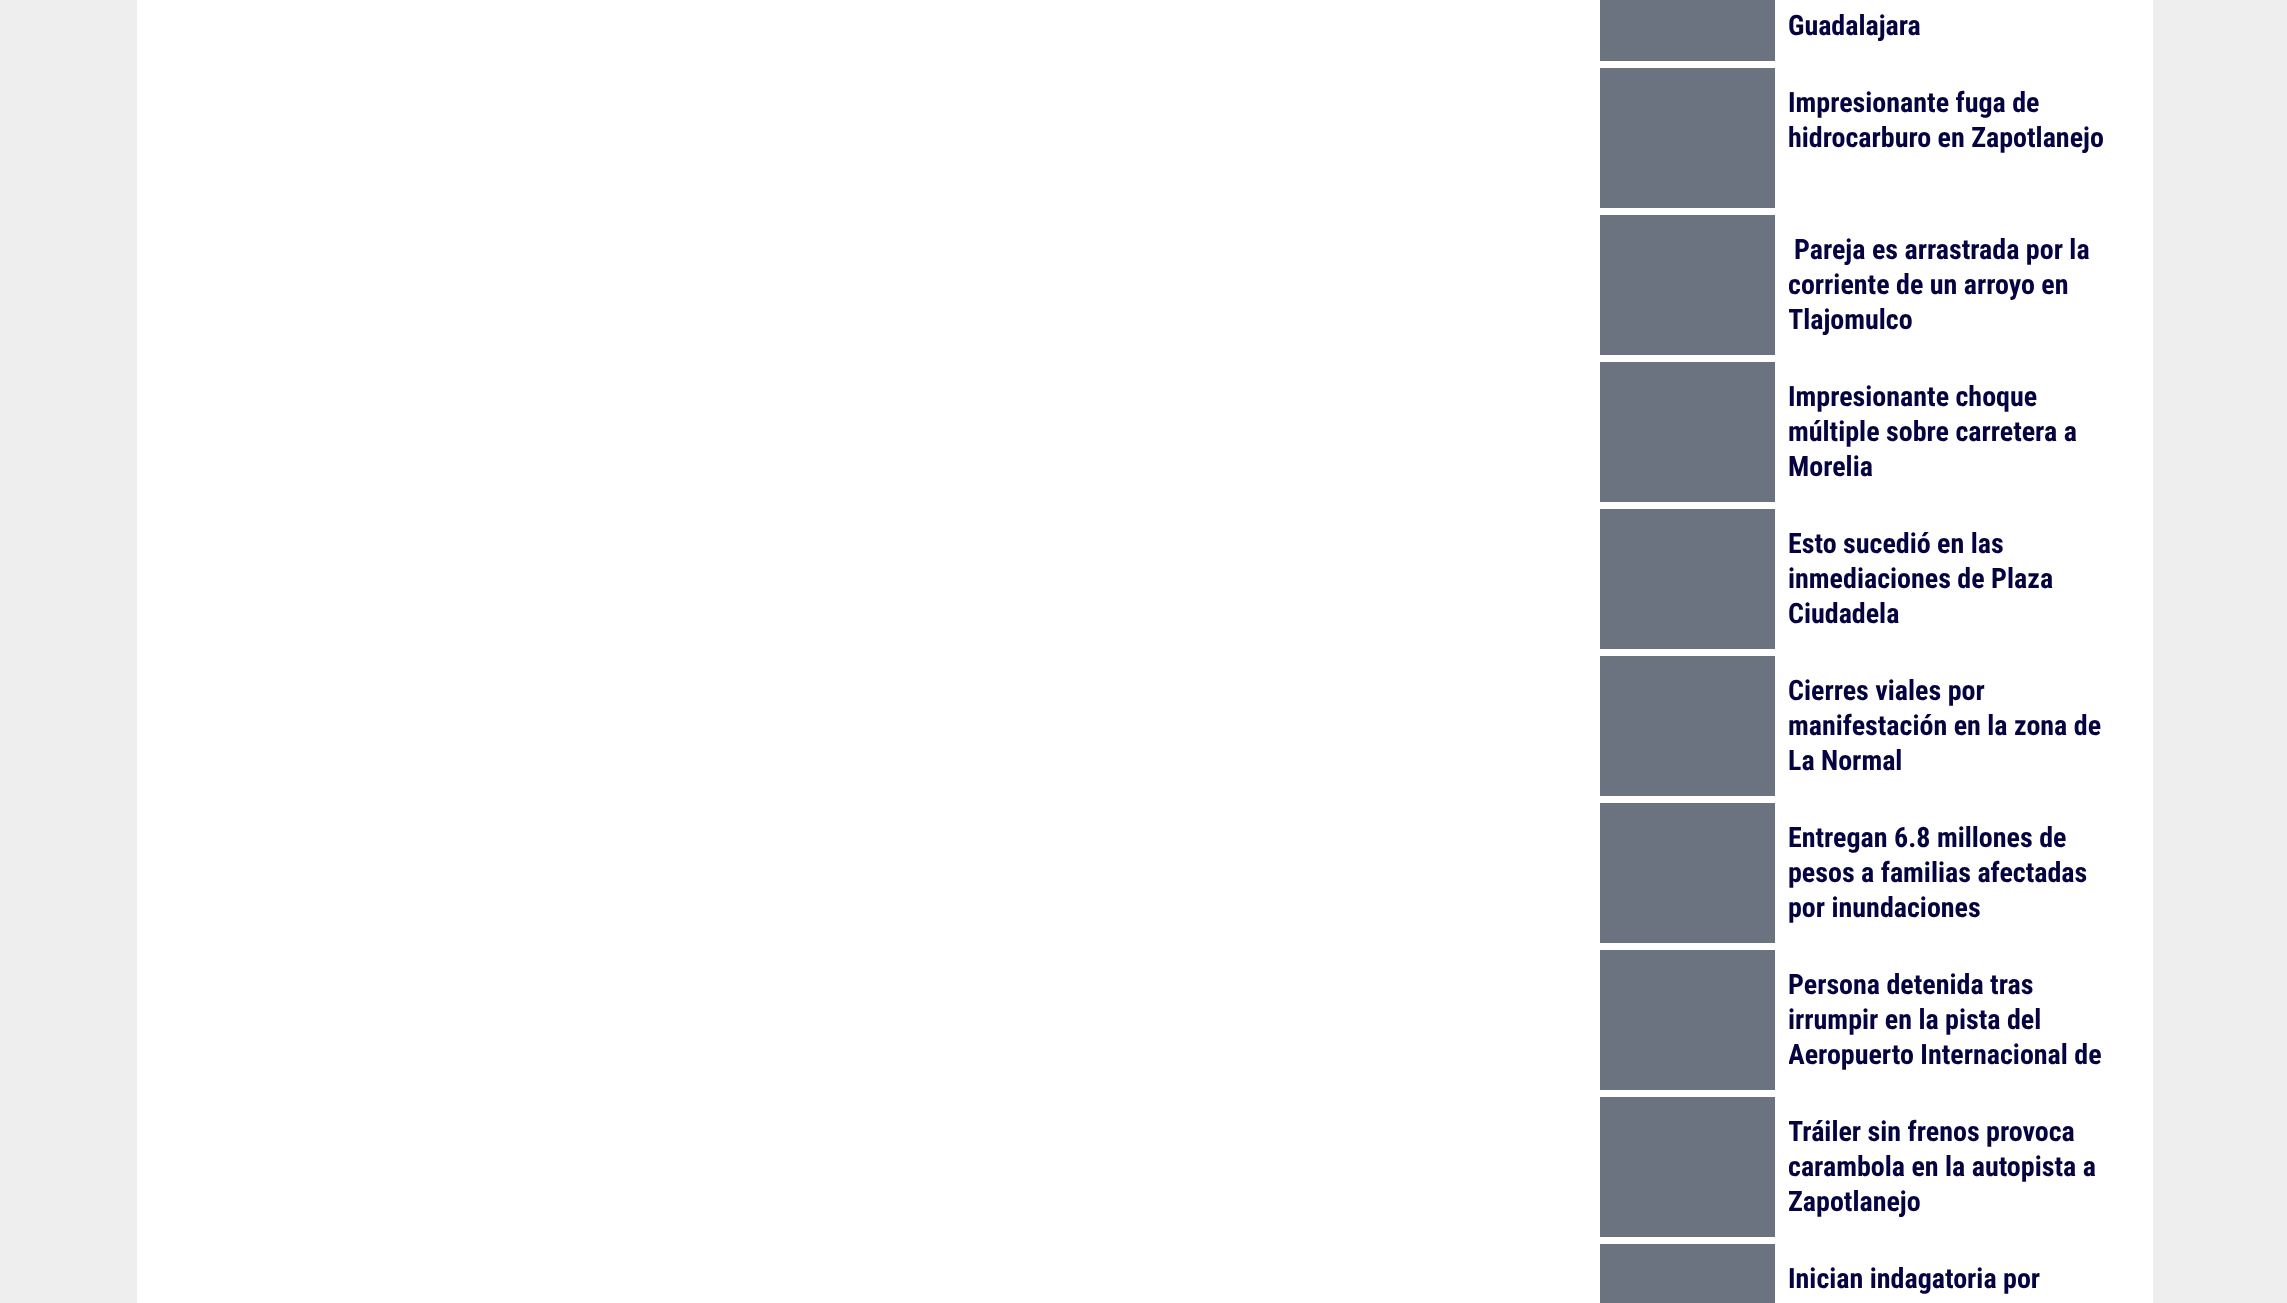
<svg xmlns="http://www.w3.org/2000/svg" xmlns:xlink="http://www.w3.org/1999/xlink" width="2287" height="1303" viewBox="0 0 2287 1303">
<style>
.cls-1{font:bold 28px Roboto Condensed;fill:#050441}
</style>
<defs>
<clipPath id="clip1"><rect x="1789" y="0" width="322" height="44"/></clipPath>
<clipPath id="clip2"><rect x="1789" y="233" width="322" height="105"/></clipPath>
<clipPath id="clip3"><rect x="1789" y="527" width="322" height="105"/></clipPath>
<clipPath id="clip4"><rect x="1789" y="674" width="322" height="105"/></clipPath>
<clipPath id="clip5"><rect x="1789" y="968" width="322" height="105"/></clipPath>
<clipPath id="clip6"><rect x="1789" y="1115" width="322" height="105"/></clipPath>
</defs>
<rect width="100%" height="100%" fill="#eeeeee"/>
<rect fill="#ffffff" x="137" y="0" width="2016" height="1303"/>
<rect fill="#6b7280" x="1600" y="0" width="175" height="61"/>
<rect fill="#6b7280" x="1600" y="68" width="175" height="140"/>
<rect fill="#6b7280" x="1600" y="215" width="175" height="140"/>
<rect fill="#6b7280" x="1600" y="362" width="175" height="140"/>
<rect fill="#6b7280" x="1600" y="509" width="175" height="140"/>
<rect fill="#6b7280" x="1600" y="656" width="175" height="140"/>
<rect fill="#6b7280" x="1600" y="803" width="175" height="140"/>
<rect fill="#6b7280" x="1600" y="950" width="175" height="140"/>
<rect fill="#6b7280" x="1600" y="1097" width="175" height="140"/>
<rect fill="#6b7280" x="1600" y="1244" width="175" height="59"/>
<g clip-path="url(#clip1)">
<text class="cls-1" x="1788" y="35">Guadalajara</text>
</g>
<text class="cls-1"><tspan x="1788" y="112">Impresionante fuga de</tspan><tspan x="1788" y="147">hidrocarburo en Zapotlanejo</tspan></text>
<text class="cls-1" x="1794" y="259">Pareja es arrastrada por la</text>
<g clip-path="url(#clip2)">
<text class="cls-1"><tspan x="1788" y="294">corriente de un arroyo en</tspan><tspan x="1788" y="329">Tlajomulco</tspan></text>
</g>
<text class="cls-1"><tspan x="1788" y="406">Impresionante choque</tspan><tspan x="1788" y="441">múltiple sobre carretera a</tspan><tspan x="1788" y="476">Morelia</tspan></text>
<text class="cls-1"><tspan x="1788" y="553">Esto sucedió en las</tspan><tspan x="1788" y="588">inmediaciones de Plaza</tspan></text>
<g clip-path="url(#clip3)">
<text class="cls-1" x="1788" y="623">Ciudadela</text>
</g>
<g clip-path="url(#clip4)">
<text class="cls-1" x="1788" y="700">Cierres viales por</text>
</g>
<text class="cls-1"><tspan x="1788" y="735">manifestación en la zona de</tspan><tspan x="1788" y="770">La Normal</tspan></text>
<text class="cls-1"><tspan x="1788" y="847">Entregan 6.8 millones de</tspan><tspan x="1788" y="882">pesos a familias afectadas</tspan><tspan x="1788" y="917">por inundaciones</tspan></text>
<text class="cls-1"><tspan x="1788" y="994">Persona detenida tras</tspan><tspan x="1788" y="1029">irrumpir en la pista del</tspan></text>
<g clip-path="url(#clip5)">
<text class="cls-1" x="1788" y="1064">Aeropuerto Internacional de</text>
</g>
<g clip-path="url(#clip6)">
<text class="cls-1"><tspan x="1788" y="1141">Tráiler sin frenos provoca</tspan><tspan x="1788" y="1176">carambola en la autopista a</tspan><tspan x="1788" y="1211">Zapotlanejo</tspan></text>
</g>
<text class="cls-1" x="1788" y="1288">Inician indagatoria por</text>
</svg>
